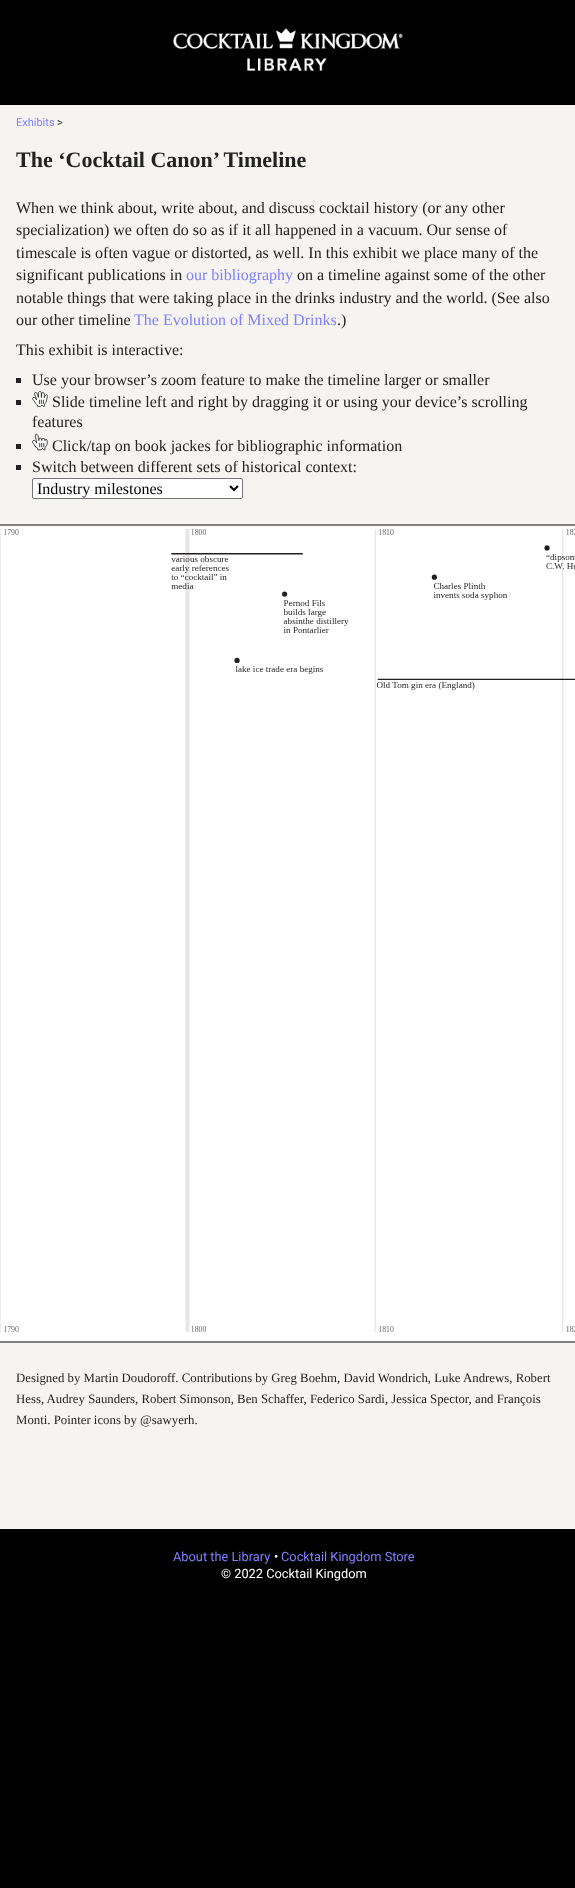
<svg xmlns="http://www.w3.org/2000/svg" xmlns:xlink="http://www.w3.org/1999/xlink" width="575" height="1888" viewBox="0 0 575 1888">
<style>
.cls-1{font:11px Roboto;fill:#8080ff}
.cls-2{font:11px Roboto;fill:#222222}
.cls-3{font:bold 22px Liberation Serif;fill:#222222}
.cls-4{font:16px Liberation Serif;fill:#222222}
.cls-5{font:16px Liberation Serif;fill:#8080ff}
.cls-6{font:16px Liberation Serif;fill:#000000}
.cls-7{font:12.8px Liberation Serif;fill:#222222}
.cls-8{font:12.8px Roboto;fill:#8080ff}
.cls-9{font:12.8px Roboto;fill:#ffffff}
</style>
<rect width="100%" height="100%" fill="#000000"/>
<image xlink:href="image0.png" x="173" y="28" width="230" height="43"/>
<rect fill="#f5f4f1" x="0" y="105" width="575" height="1424"/>
<rect fill="#222222" x="16" y="378" width="5" height="5"/>
<rect fill="#222222" x="16" y="400" width="5" height="5"/>
<image xlink:href="image1.png" x="32" y="391" width="16" height="16"/>
<rect fill="#222222" x="16" y="444" width="5" height="5"/>
<image xlink:href="image2.png" x="32" y="433" width="16" height="18"/>
<rect fill="#222222" x="16" y="465" width="5" height="5"/>
<rect fill="#ffffff" stroke="#767676" x="32.5" y="478.5" width="210" height="20" rx="1.5"/>
<path fill="none" stroke="#000000" stroke-width="2" d="M230 486L234 490L238 486"/>
<rect fill="#ffffff" x="0" y="526" width="575" height="815"/>
<rect fill="#808080" x="0" y="524" width="575" height="2"/>
<rect fill="#808080" x="0" y="1341" width="575" height="2"/>
<image xlink:href="image3.png" x="0" y="529" width="575" height="803"/>
<text class="cls-1" x="16" y="126">Exhibits</text>
<text class="cls-2" x="57" y="126">&gt;</text>
<text class="cls-3" x="16" y="167">The ‘Cocktail Canon’ Timeline</text>
<text class="cls-4"><tspan x="16" y="213">When we think about, write about, and discuss cocktail history (or any other</tspan><tspan x="16" y="235">specialization) we often do so as if it all happened in a vacuum. Our sense of</tspan><tspan x="16" y="258">timescale is often vague or distorted, as well. In this exhibit we place many of the</tspan><tspan x="16" y="280">significant publications in</tspan></text>
<text class="cls-5" x="186" y="280">our bibliography</text>
<text class="cls-4" x="297" y="280">on a timeline against some of the other</text>
<text class="cls-4"><tspan x="16" y="303">notable things that were taking place in the drinks industry and the world. (See also</tspan><tspan x="16" y="325">our other timeline</tspan></text>
<text class="cls-5" x="134" y="325">The Evolution of Mixed Drinks</text>
<text class="cls-4" x="337" y="325">.)</text>
<text class="cls-4" x="16" y="355">This exhibit is interactive:</text>
<text class="cls-4" x="32" y="385">Use your browser’s zoom feature to make the timeline larger or smaller</text>
<text class="cls-4" x="52" y="407">Slide timeline left and right by dragging it or using your device’s scrolling</text>
<text class="cls-4" x="32" y="427">features</text>
<text class="cls-4" x="52" y="451">Click/tap on book jackes for bibliographic information</text>
<text class="cls-4" x="32" y="472">Switch between different sets of historical context:</text>
<text class="cls-6" x="37" y="494">Industry milestones</text>
<text class="cls-7"><tspan x="16" y="1382">Designed by Martin Doudoroff. Contributions by Greg Boehm, David Wondrich, Luke Andrews, Robert</tspan><tspan x="16" y="1403">Hess, Audrey Saunders, Robert Simonson, Ben Schaffer, Federico Sardi, Jessica Spector, and François</tspan><tspan x="16" y="1424">Monti. Pointer icons by @sawyerh.</tspan></text>
<text class="cls-8" x="173" y="1561">About the Library</text>
<text class="cls-9" x="274" y="1561">•</text>
<text class="cls-8" x="281" y="1561">Cocktail Kingdom Store</text>
<text class="cls-9" x="221" y="1578">© 2022 Cocktail Kingdom</text>
</svg>
